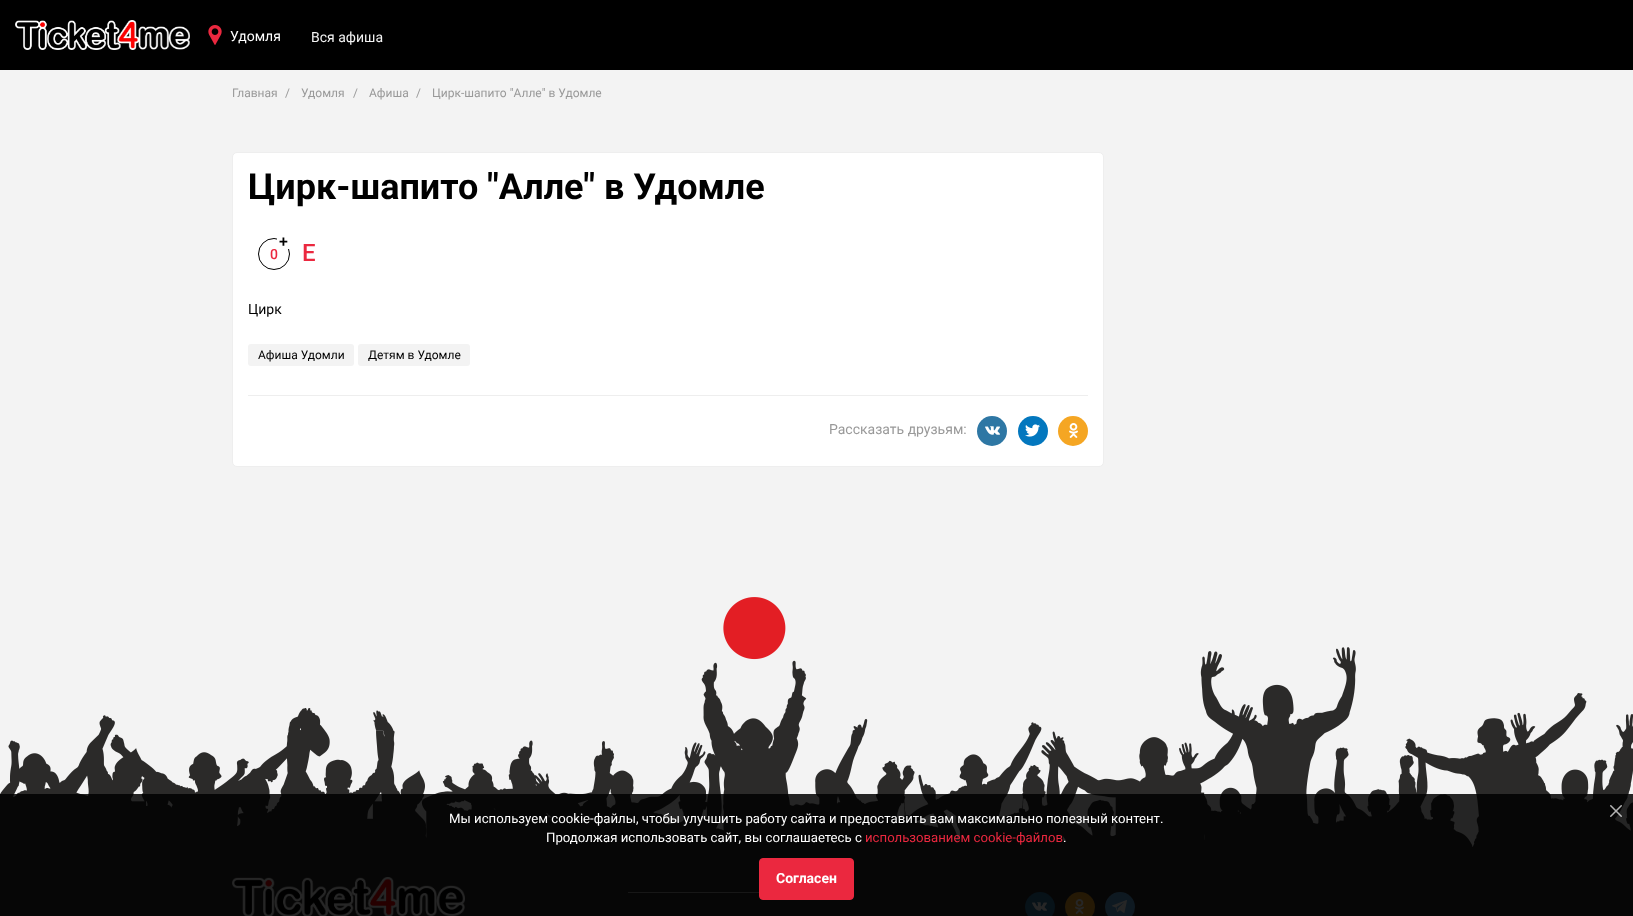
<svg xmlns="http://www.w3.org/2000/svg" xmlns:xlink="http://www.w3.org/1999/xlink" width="1633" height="916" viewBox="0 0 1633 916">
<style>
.cls-1{font:14px Roboto;fill:#ffffff}
.cls-2{font:14px Roboto;fill:#f3f3f3}
.cls-3{font:12px Roboto;fill:#999999}
.cls-4{font:bold 36px Roboto;fill:#000000}
.cls-5{font:500 16px Roboto;fill:#000000}
.cls-6{font:500 14px Roboto;fill:#eb283f}
.cls-7{font:500 24px Roboto;fill:#eb283f}
.cls-8{font:14px Roboto;fill:#000000}
.cls-9{font:12px Roboto;fill:#000000}
.cls-10{font:14px Roboto;fill:#999999}
.cls-11{font:13.2px Roboto;fill:#ffffff}
.cls-12{font:13.2px Roboto;fill:#eb283f}
.cls-13{font:bold 14px Roboto;fill:#ffffff}
</style>
<rect width="100%" height="100%" fill="#f3f3f3"/>
<rect fill="#000000" x="0" y="0" width="1633" height="70"/>
<image xlink:href="image0.png" x="15" y="20" width="175" height="30"/>
<image xlink:href="image1.png" x="208" y="25" width="14" height="20"/>
<rect fill="#ffffff" stroke="#eeeeee" x="232.5" y="152.5" width="871" height="314" rx="4.5"/>
<circle fill="none" stroke="#000000" cx="274" cy="254" r="15.5"/>
<rect fill="#ffffff" x="277" y="238" width="13" height="11"/>
<rect fill="#f3f3f3" x="248" y="344" width="106" height="22" rx="3"/>
<rect fill="#f3f3f3" x="358" y="344" width="112" height="22" rx="3"/>
<rect fill="#eeeeee" x="248" y="395" width="840" height="1"/>
<circle fill="#2e77a4" cx="992" cy="431" r="15"/>
<image xlink:href="image2.png" x="985" y="426" width="15" height="9"/>
<circle fill="#0377be" cx="1033" cy="431" r="15"/>
<image xlink:href="image3.png" x="1025" y="424" width="15" height="13"/>
<circle fill="#f5a623" cx="1073" cy="431" r="15"/>
<image xlink:href="image4.png" x="1069" y="423" width="9" height="15"/>
<image xlink:href="image5.png" x="0" y="597" width="1633" height="250"/>
<rect fill="#2b2a29" x="0" y="847" width="1633" height="69"/>
<image xlink:href="image6.png" x="232" y="877" width="233" height="39"/>
<rect fill="#999999" x="628" y="892" width="131" height="1"/>
<circle fill="#2e77a4" cx="1040" cy="907" r="15"/>
<image xlink:href="image2.png" x="1032" y="902" width="15" height="9"/>
<circle fill="#f5a623" cx="1080" cy="907" r="15"/>
<image xlink:href="image4.png" x="1075" y="899" width="9" height="15"/>
<circle fill="#61a8de" cx="1120" cy="907" r="15"/>
<image xlink:href="image7.png" x="1112" y="900" width="15" height="13"/>
<rect fill="#000000" fill-opacity="0.85" x="0" y="794" width="1633" height="122"/>
<image xlink:href="image8.png" x="1610" y="805" width="12" height="12"/>
<rect fill="#eb283f" stroke="#eb283f" x="759.5" y="858.5" width="94" height="41" rx="3.5"/>
<text class="cls-1" x="230" y="41">Удомля</text>
<text class="cls-2" x="311" y="42">Вся афиша</text>
<text class="cls-3" x="232" y="97">Главная</text>
<text class="cls-3" x="285" y="97">/</text>
<text class="cls-3" x="301" y="97">Удомля</text>
<text class="cls-3" x="353" y="97">/</text>
<text class="cls-3" x="369" y="97">Афиша</text>
<text class="cls-3" x="416" y="97">/</text>
<text class="cls-3" x="432" y="97">Цирк-шапито "Алле" в Удомле</text>
<text class="cls-4" x="248" y="199">Цирк-шапито "Алле" в Удомле</text>
<text class="cls-5" x="279" y="247">+</text>
<text class="cls-6" x="270" y="259">0</text>
<text class="cls-7" x="302" y="261">E</text>
<text class="cls-8" x="248" y="314">Цирк</text>
<text class="cls-9" x="258" y="359">Афиша Удомли</text>
<text class="cls-9" x="368" y="359">Детям в Удомле</text>
<text class="cls-10" x="829" y="434">Рассказать друзьям:</text>
<text class="cls-11" x="449" y="823">Мы используем cookie-файлы, чтобы улучшить работу сайта и предоставить вам максимально полезный контент.</text>
<text class="cls-11" x="546" y="842">Продолжая использовать сайт, вы соглашаетесь с</text>
<text class="cls-12" x="865" y="842">использованием cookie-файлов</text>
<text class="cls-11" x="1063" y="842">.</text>
<text class="cls-13" x="776" y="883">Согласен</text>
</svg>
